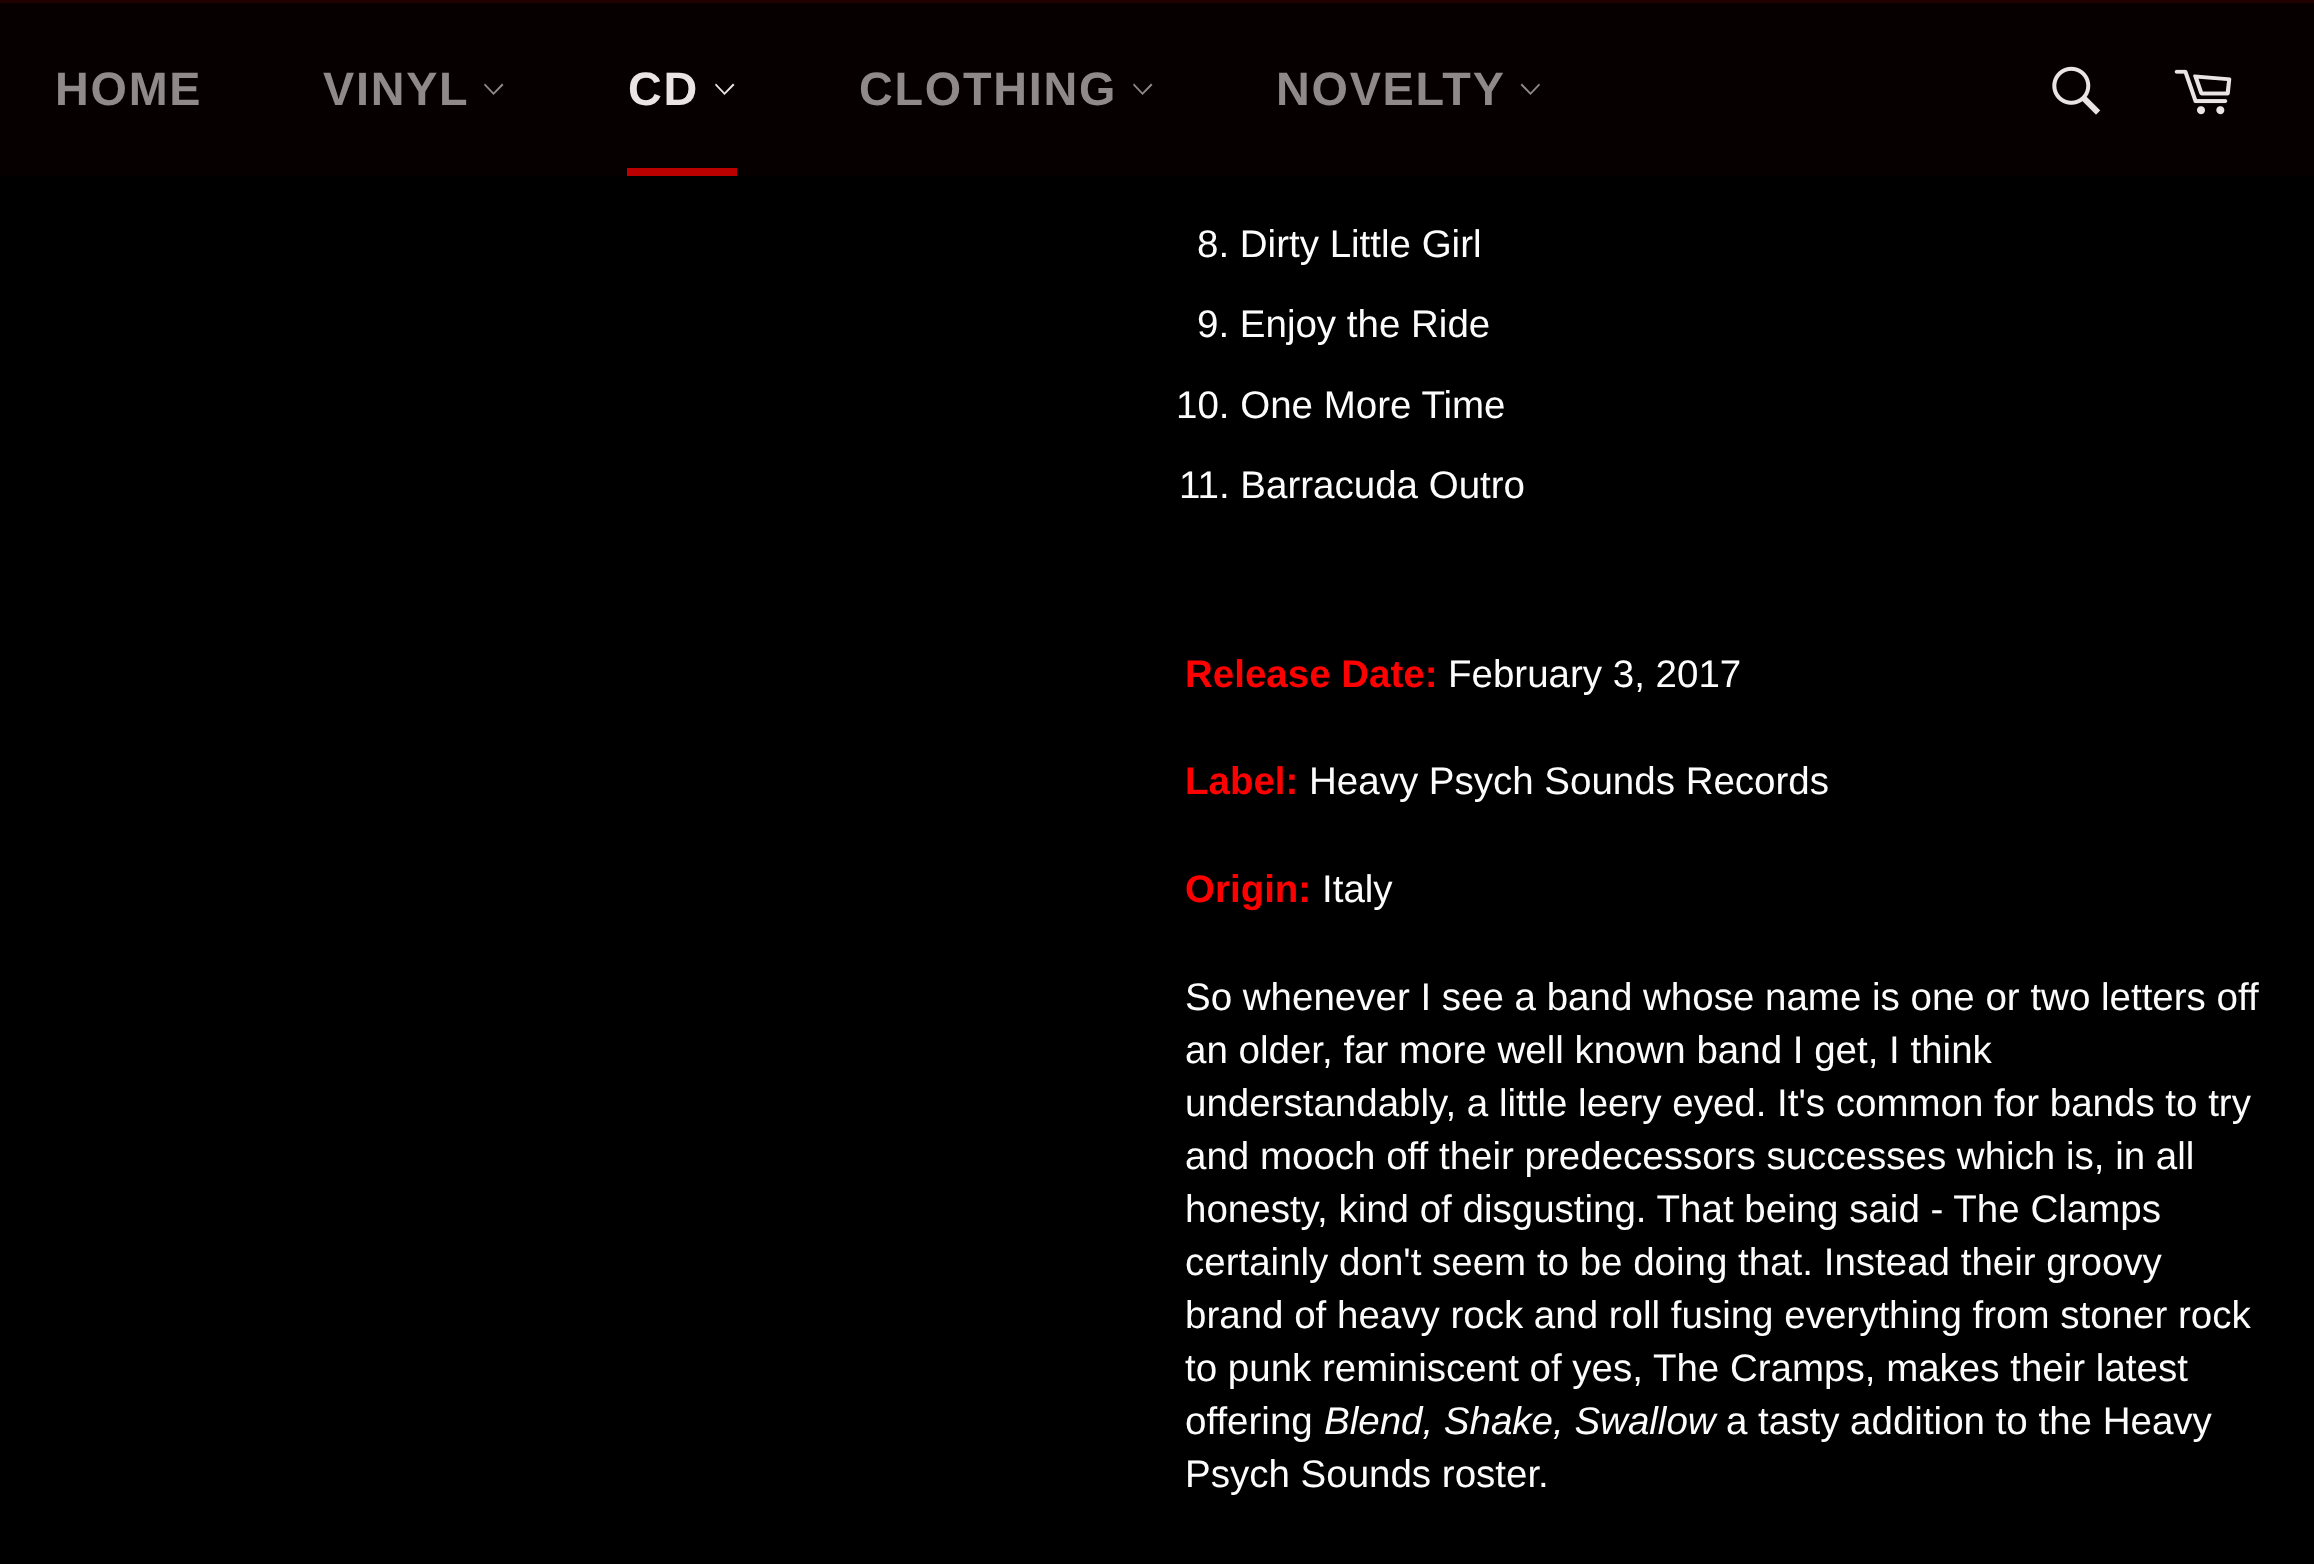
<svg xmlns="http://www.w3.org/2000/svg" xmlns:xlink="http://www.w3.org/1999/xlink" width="2314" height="1564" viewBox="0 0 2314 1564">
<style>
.cls-1{font:bold 46.75px Liberation Sans;letter-spacing:1.75px;fill:#908989}
.cls-2{font:bold 46.75px Liberation Sans;letter-spacing:1.75px;fill:#ebe4e4}
.cls-3{font:38.5px Liberation Sans;fill:#fcfcfc}
.cls-4{font:bold 38.5px Liberation Sans;fill:#ff0000}
.cls-5{font:italic 38.5px Liberation Sans;fill:#fcfcfc}
</style>
<rect width="100%" height="100%" fill="#000000"/>
<rect fill="#070000" x="0" y="3" width="2314" height="173"/>
<rect fill="#210000" x="0" y="0" width="2314" height="3"/>
<path fill="#908989" d="M502 83.5L503.5 85L493.5 95L484 85L485 83.5L493.5 92.5Z"/>
<path fill="#ebe4e4" d="M733 83.5L734.5 85L724.5 95L715 85L716 83.5L724.5 92.5Z"/>
<rect fill="#bb0000" x="627" y="168" width="110" height="8"/>
<path fill="#908989" d="M1151 83.5L1152.5 85L1142.5 95L1133 85L1134 83.5L1142.5 92.5Z"/>
<path fill="#908989" d="M1539 83.5L1540 85L1530.5 95L1520.5 85L1522 83.5L1530.5 92.5Z"/>
<image xlink:href="image0.png" x="2052" y="66" width="49" height="49"/>
<image xlink:href="image1.png" x="2174" y="69" width="58" height="46"/>
<text class="cls-1" x="55" y="105">HOME</text>
<text class="cls-1" x="323" y="105">VINYL</text>
<text class="cls-2" x="628" y="105">CD</text>
<text class="cls-1" x="859" y="105">CLOTHING</text>
<text class="cls-1" x="1276" y="105">NOVELTY</text>
<text class="cls-3" x="1197" y="257">8. Dirty Little Girl</text>
<text class="cls-3" x="1197" y="337">9. Enjoy the Ride</text>
<text class="cls-3" x="1176" y="418">10. One More Time</text>
<text class="cls-3" x="1179" y="498">11. Barracuda Outro</text>
<text class="cls-4" x="1185" y="687">Release Date:</text>
<text class="cls-3" x="1448" y="687">February 3, 2017</text>
<text class="cls-4" x="1185" y="794">Label:</text>
<text class="cls-3" x="1309" y="794">Heavy Psych Sounds Records</text>
<text class="cls-4" x="1185" y="902">Origin:</text>
<text class="cls-3" x="1322" y="902">Italy</text>
<text class="cls-3"><tspan x="1185" y="1010">So whenever I see a band whose name is one or two letters off</tspan><tspan x="1185" y="1063">an older, far more well known band I get, I think</tspan><tspan x="1185" y="1116">understandably, a little leery eyed. It's common for bands to try</tspan><tspan x="1185" y="1169">and mooch off their predecessors successes which is, in all</tspan><tspan x="1185" y="1222">honesty, kind of disgusting. That being said - The Clamps</tspan><tspan x="1185" y="1275">certainly don't seem to be doing that. Instead their groovy</tspan><tspan x="1185" y="1328">brand of heavy rock and roll fusing everything from stoner rock</tspan><tspan x="1185" y="1381">to punk reminiscent of yes, The Cramps, makes their latest</tspan><tspan x="1185" y="1434">offering</tspan></text>
<text class="cls-5" x="1324" y="1434">Blend, Shake, Swallow</text>
<text class="cls-3" x="1726" y="1434">a tasty addition to the Heavy</text>
<text class="cls-3" x="1185" y="1487">Psych Sounds roster.</text>
</svg>
